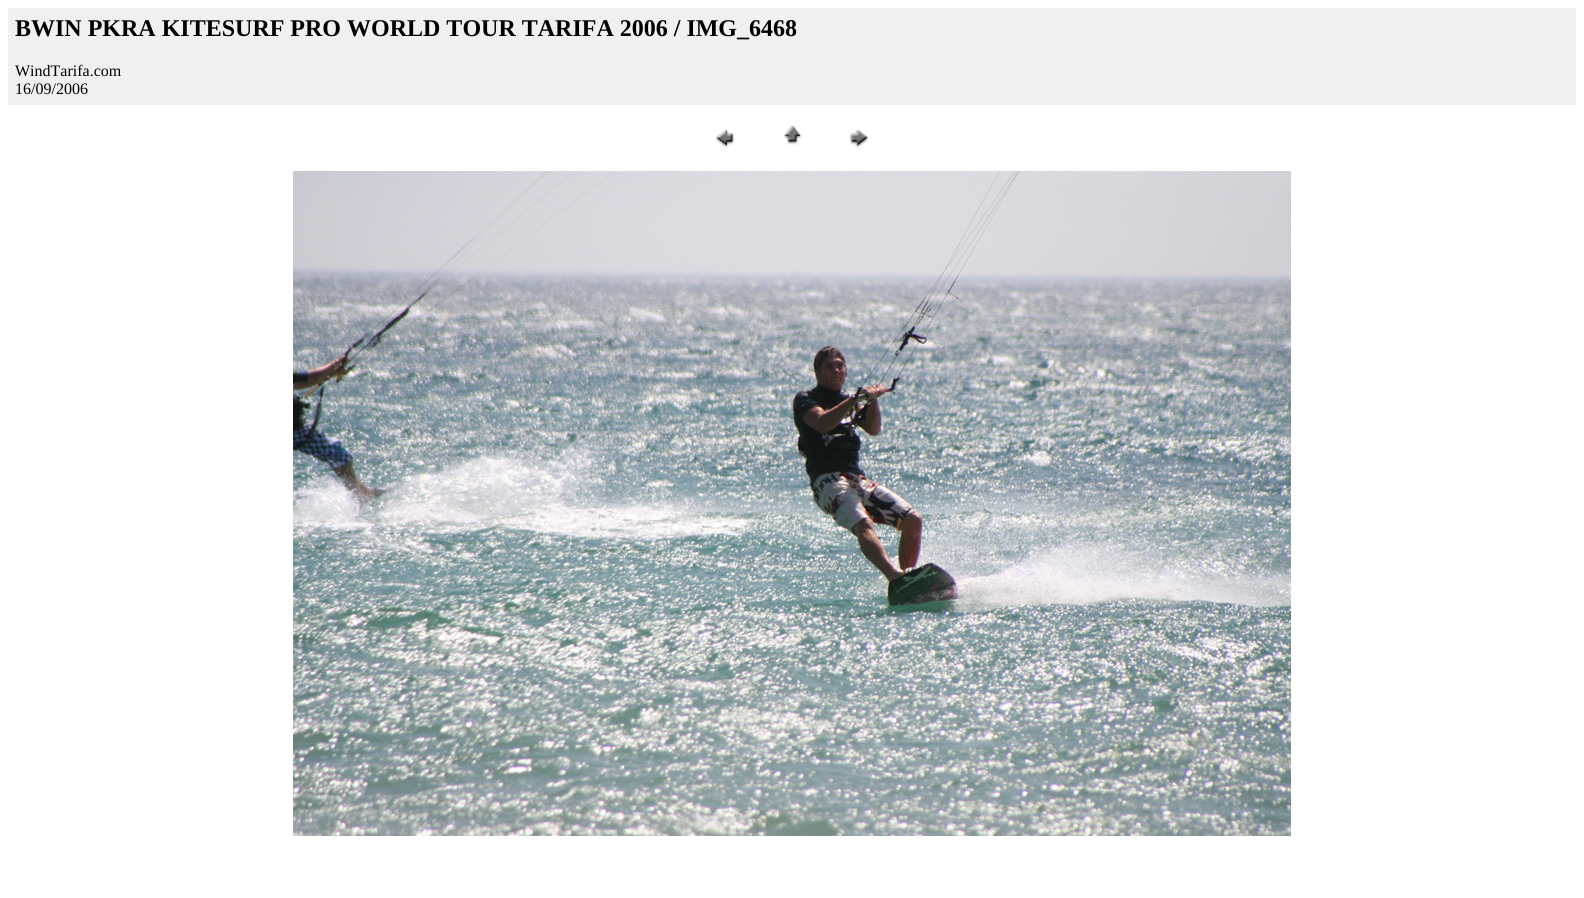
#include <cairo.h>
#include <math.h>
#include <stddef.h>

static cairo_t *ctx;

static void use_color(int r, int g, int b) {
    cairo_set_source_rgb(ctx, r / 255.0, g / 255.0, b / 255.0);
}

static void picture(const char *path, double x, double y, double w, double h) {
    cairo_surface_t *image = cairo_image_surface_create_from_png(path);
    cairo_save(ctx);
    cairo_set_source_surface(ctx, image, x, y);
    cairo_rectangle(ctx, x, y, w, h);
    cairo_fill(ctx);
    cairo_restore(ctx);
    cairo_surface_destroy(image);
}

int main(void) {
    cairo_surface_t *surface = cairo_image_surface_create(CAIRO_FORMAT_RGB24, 1584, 898);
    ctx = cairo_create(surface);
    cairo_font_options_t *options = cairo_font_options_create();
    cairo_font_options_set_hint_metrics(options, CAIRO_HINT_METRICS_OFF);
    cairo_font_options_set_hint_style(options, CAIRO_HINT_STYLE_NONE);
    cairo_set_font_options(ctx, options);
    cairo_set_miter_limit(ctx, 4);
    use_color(255, 255, 255);
    cairo_paint(ctx);
    use_color(240, 240, 240);
    cairo_rectangle(ctx, 8, 8, 1568, 97);
    cairo_fill(ctx);
    cairo_select_font_face(ctx, "Liberation Serif", CAIRO_FONT_SLANT_NORMAL, CAIRO_FONT_WEIGHT_BOLD);
    cairo_set_font_size(ctx, 24);
    use_color(0, 0, 0);
    cairo_move_to(ctx, 15, 36);
    cairo_show_text(ctx, "BWIN PKRA KITESURF PRO WORLD TOUR TARIFA 2006 / IMG_6468");
    cairo_select_font_face(ctx, "Liberation Serif", CAIRO_FONT_SLANT_NORMAL, CAIRO_FONT_WEIGHT_NORMAL);
    cairo_set_font_size(ctx, 16);
    cairo_move_to(ctx, 15, 76);
    cairo_show_text(ctx, "WindTarifa.com");
    cairo_move_to(ctx, 15, 94);
    cairo_show_text(ctx, "16/09/2006");
    picture("img1.png", 715, 129, 20, 19);
    picture("img2.png", 783, 125, 19, 20);
    picture("img3.png", 849, 129, 20, 19);
    picture("img4.png", 293, 171, 998, 665);
    cairo_surface_write_to_png(surface, "result.png");
    cairo_font_options_destroy(options);
    cairo_destroy(ctx);
    cairo_surface_destroy(surface);
    return 0;
}
